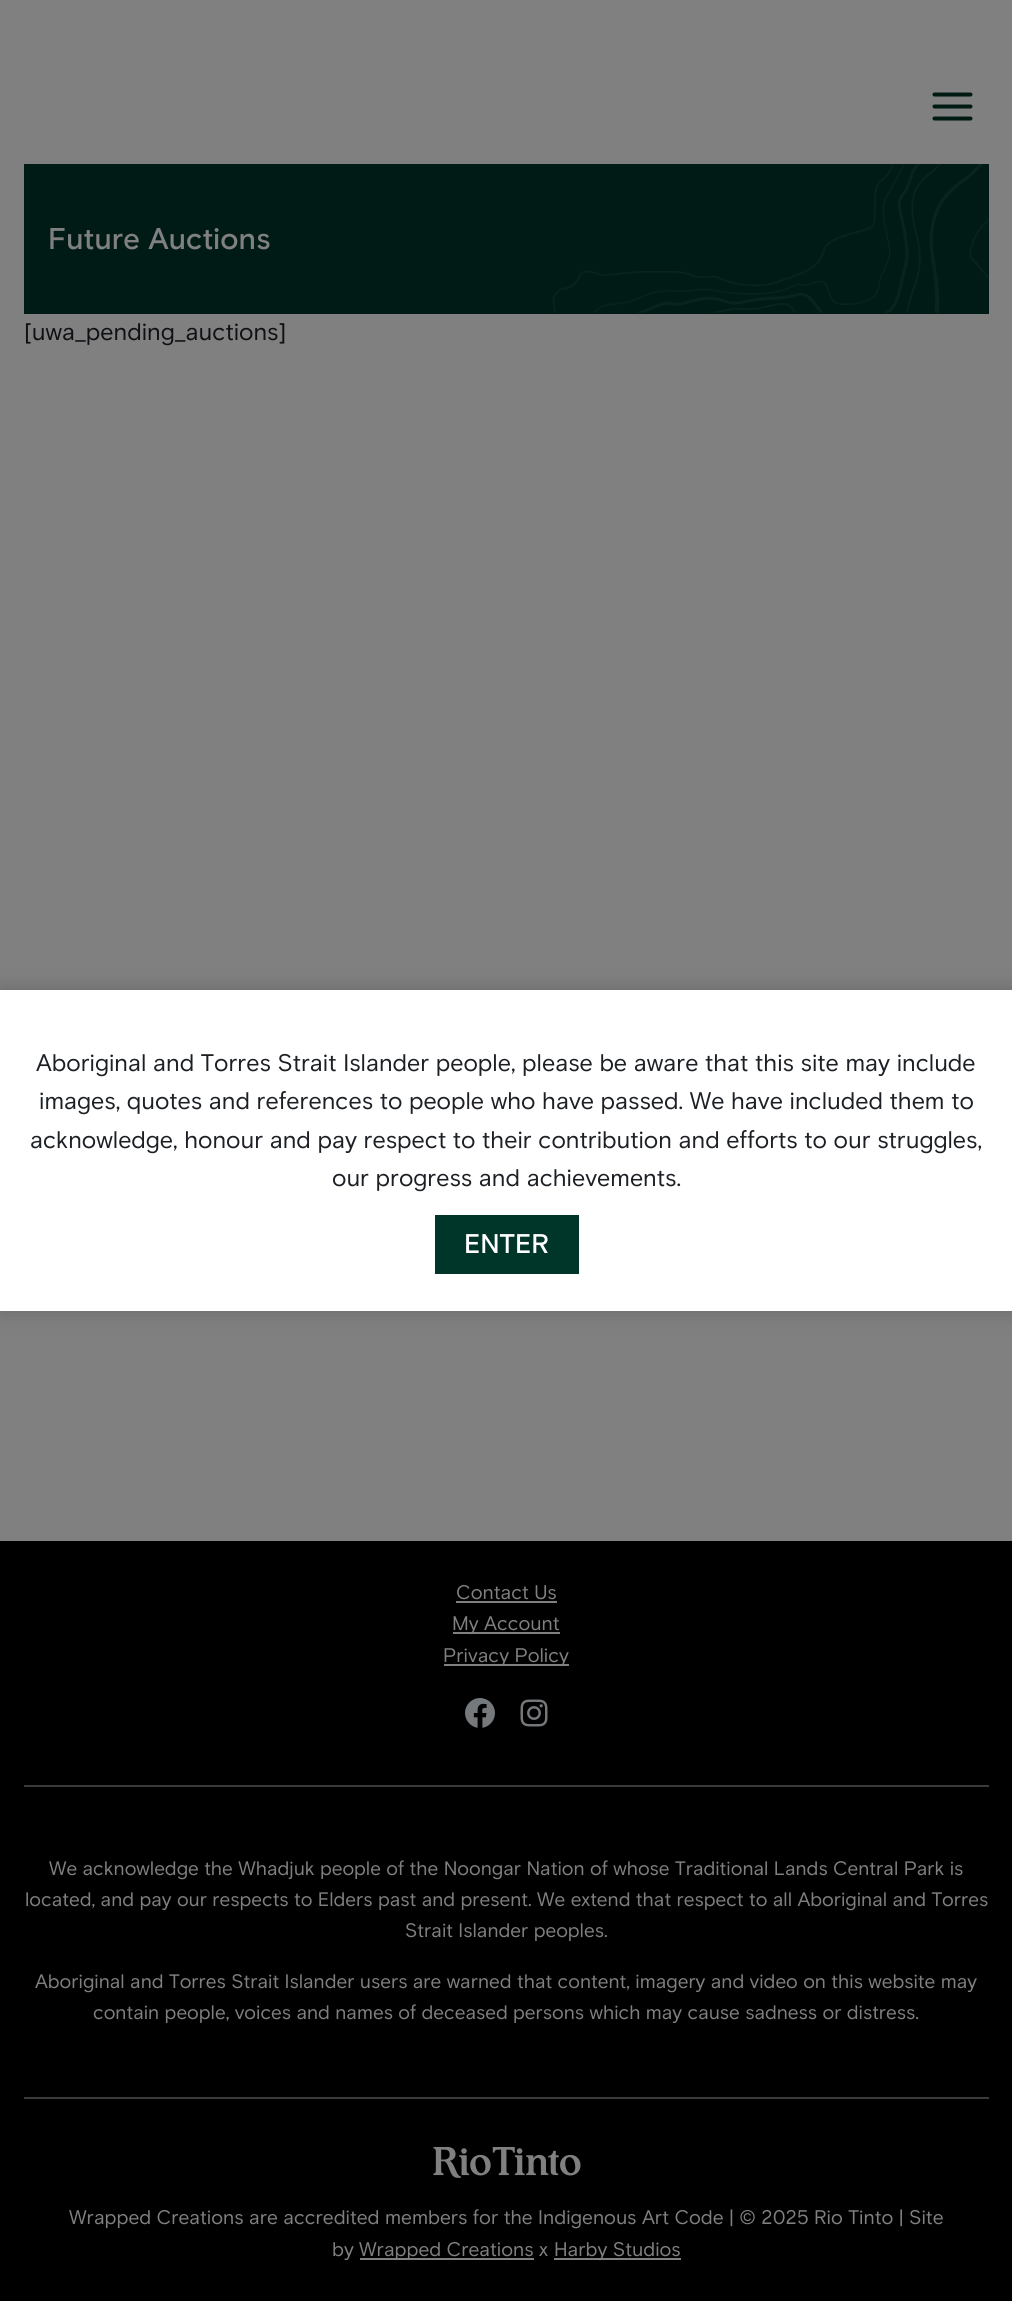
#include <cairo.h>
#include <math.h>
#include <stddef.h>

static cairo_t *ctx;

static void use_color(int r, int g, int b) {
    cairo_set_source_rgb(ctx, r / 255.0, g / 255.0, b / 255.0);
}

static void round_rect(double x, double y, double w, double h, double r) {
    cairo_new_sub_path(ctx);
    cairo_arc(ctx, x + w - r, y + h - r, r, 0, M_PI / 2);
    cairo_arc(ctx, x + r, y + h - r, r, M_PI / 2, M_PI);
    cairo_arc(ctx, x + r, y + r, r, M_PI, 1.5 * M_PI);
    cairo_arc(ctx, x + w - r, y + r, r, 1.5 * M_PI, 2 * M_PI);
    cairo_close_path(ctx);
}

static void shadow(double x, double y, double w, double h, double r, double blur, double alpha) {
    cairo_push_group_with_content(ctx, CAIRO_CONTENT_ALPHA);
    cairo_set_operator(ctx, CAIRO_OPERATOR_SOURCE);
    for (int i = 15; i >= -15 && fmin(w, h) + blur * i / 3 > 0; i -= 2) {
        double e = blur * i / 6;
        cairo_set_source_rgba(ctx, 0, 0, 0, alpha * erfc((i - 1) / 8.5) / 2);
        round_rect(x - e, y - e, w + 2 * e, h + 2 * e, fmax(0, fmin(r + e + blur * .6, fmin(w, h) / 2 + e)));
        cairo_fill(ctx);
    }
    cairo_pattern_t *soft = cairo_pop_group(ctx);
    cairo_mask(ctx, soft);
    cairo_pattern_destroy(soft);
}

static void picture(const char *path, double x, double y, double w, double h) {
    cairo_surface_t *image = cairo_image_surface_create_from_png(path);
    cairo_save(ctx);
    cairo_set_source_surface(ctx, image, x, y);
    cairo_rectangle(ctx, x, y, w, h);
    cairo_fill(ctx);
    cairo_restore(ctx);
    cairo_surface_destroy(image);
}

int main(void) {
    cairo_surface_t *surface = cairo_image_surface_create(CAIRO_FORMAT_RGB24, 1012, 2301);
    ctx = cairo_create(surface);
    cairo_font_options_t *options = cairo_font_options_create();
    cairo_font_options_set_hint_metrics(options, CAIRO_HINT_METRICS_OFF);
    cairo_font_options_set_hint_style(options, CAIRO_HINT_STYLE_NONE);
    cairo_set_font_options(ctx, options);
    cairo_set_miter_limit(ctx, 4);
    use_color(128, 128, 128);
    cairo_paint(ctx);
    picture("img1.png", 932, 92, 41, 29);
    use_color(0, 27, 21);
    cairo_rectangle(ctx, 24, 164, 965, 150);
    cairo_fill(ctx);
    picture("img2.png", 552, 164, 437, 149);
    cairo_select_font_face(ctx, "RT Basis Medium", CAIRO_FONT_SLANT_NORMAL, CAIRO_FONT_WEIGHT_NORMAL);
    cairo_set_font_size(ctx, 30);
    use_color(128, 128, 128);
    cairo_move_to(ctx, 48, 249);
    cairo_show_text(ctx, "Future Auctions");
    cairo_select_font_face(ctx, "RT Basis", CAIRO_FONT_SLANT_NORMAL, CAIRO_FONT_WEIGHT_NORMAL);
    cairo_set_font_size(ctx, 24);
    use_color(14, 16, 19);
    cairo_move_to(ctx, 24, 340);
    cairo_show_text(ctx, "[uwa_pending_auctions]");
    use_color(0, 0, 0);
    cairo_rectangle(ctx, 0, 1541, 1012, 760);
    cairo_fill(ctx);
    cairo_set_font_size(ctx, 19.7);
    use_color(128, 128, 128);
    cairo_move_to(ctx, 456, 1599);
    cairo_show_text(ctx, "Contact Us");
    cairo_rectangle(ctx, 456, 1601, 101, 2);
    cairo_fill(ctx);
    cairo_rectangle(ctx, 453, 1632, 107, 2);
    cairo_fill(ctx);
    cairo_move_to(ctx, 452, 1630);
    cairo_show_text(ctx, "My Account");
    cairo_rectangle(ctx, 444, 1664, 125, 2);
    cairo_fill(ctx);
    cairo_move_to(ctx, 443, 1662);
    cairo_show_text(ctx, "Privacy Policy");
    picture("img3.png", 465, 1698, 30, 30);
    picture("img4.png", 520, 1699, 28, 28);
    use_color(57, 57, 57);
    cairo_rectangle(ctx, 24, 1785, 965, 2);
    cairo_fill(ctx);
    cairo_rectangle(ctx, 24, 2097, 965, 2);
    cairo_fill(ctx);
    cairo_set_font_size(ctx, 19.5);
    use_color(128, 128, 128);
    cairo_move_to(ctx, 49, 1875);
    cairo_show_text(ctx, "We acknowledge the Whadjuk people of the Noongar Nation of whose Traditional Lands Central Park is");
    cairo_move_to(ctx, 25, 1906);
    cairo_show_text(ctx, "located, and pay our respects to Elders past and present. We extend that respect to all Aboriginal and Torres");
    cairo_move_to(ctx, 405, 1937);
    cairo_show_text(ctx, "Strait Islander peoples.");
    cairo_move_to(ctx, 35, 1988);
    cairo_show_text(ctx, "Aboriginal and Torres Strait Islander users are warned that content, imagery and video on this website may");
    cairo_move_to(ctx, 93, 2019);
    cairo_show_text(ctx, "contain people, voices and names of deceased persons which may cause sadness or distress.");
    picture("img5.png", 433, 2147, 148, 31);
    cairo_set_font_size(ctx, 19.7);
    cairo_move_to(ctx, 69, 2224);
    cairo_show_text(ctx, "Wrapped Creations are accredited members for the Indigenous Art Code | © 2025 Rio Tinto | Site");
    cairo_move_to(ctx, 332, 2256);
    cairo_show_text(ctx, "by");
    cairo_rectangle(ctx, 360, 2258, 174, 2);
    cairo_fill(ctx);
    cairo_move_to(ctx, 359, 2256);
    cairo_show_text(ctx, "Wrapped Creations x");
    cairo_rectangle(ctx, 554, 2258, 127, 2);
    cairo_fill(ctx);
    cairo_move_to(ctx, 554, 2256);
    cairo_show_text(ctx, "Harby Studios");
    use_color(0, 0, 0);
    shadow(0, 990, 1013, 321, 0, 10.5, 0.2);
    use_color(255, 255, 255);
    cairo_rectangle(ctx, 0, 990, 1012, 321);
    cairo_fill(ctx);
    cairo_set_font_size(ctx, 24);
    use_color(28, 32, 37);
    cairo_move_to(ctx, 36, 1071);
    cairo_show_text(ctx, "Aboriginal and Torres Strait Islander people, please be aware that this site may include");
    cairo_move_to(ctx, 39, 1109);
    cairo_show_text(ctx, "images, quotes and references to people who have passed. We have included them to");
    cairo_move_to(ctx, 30, 1148);
    cairo_show_text(ctx, "acknowledge, honour and pay respect to their contribution and efforts to our struggles,");
    cairo_move_to(ctx, 332, 1186);
    cairo_show_text(ctx, "our progress and achievements.");
    use_color(0, 53, 41);
    cairo_rectangle(ctx, 435, 1215, 144, 59);
    cairo_fill(ctx);
    cairo_select_font_face(ctx, "RT Basis Medium", CAIRO_FONT_SLANT_NORMAL, CAIRO_FONT_WEIGHT_NORMAL);
    cairo_set_font_size(ctx, 27);
    use_color(255, 255, 255);
    cairo_move_to(ctx, 464, 1253);
    cairo_show_text(ctx, "ENTER");
    cairo_surface_write_to_png(surface, "result.png");
    cairo_font_options_destroy(options);
    cairo_destroy(ctx);
    cairo_surface_destroy(surface);
    return 0;
}
